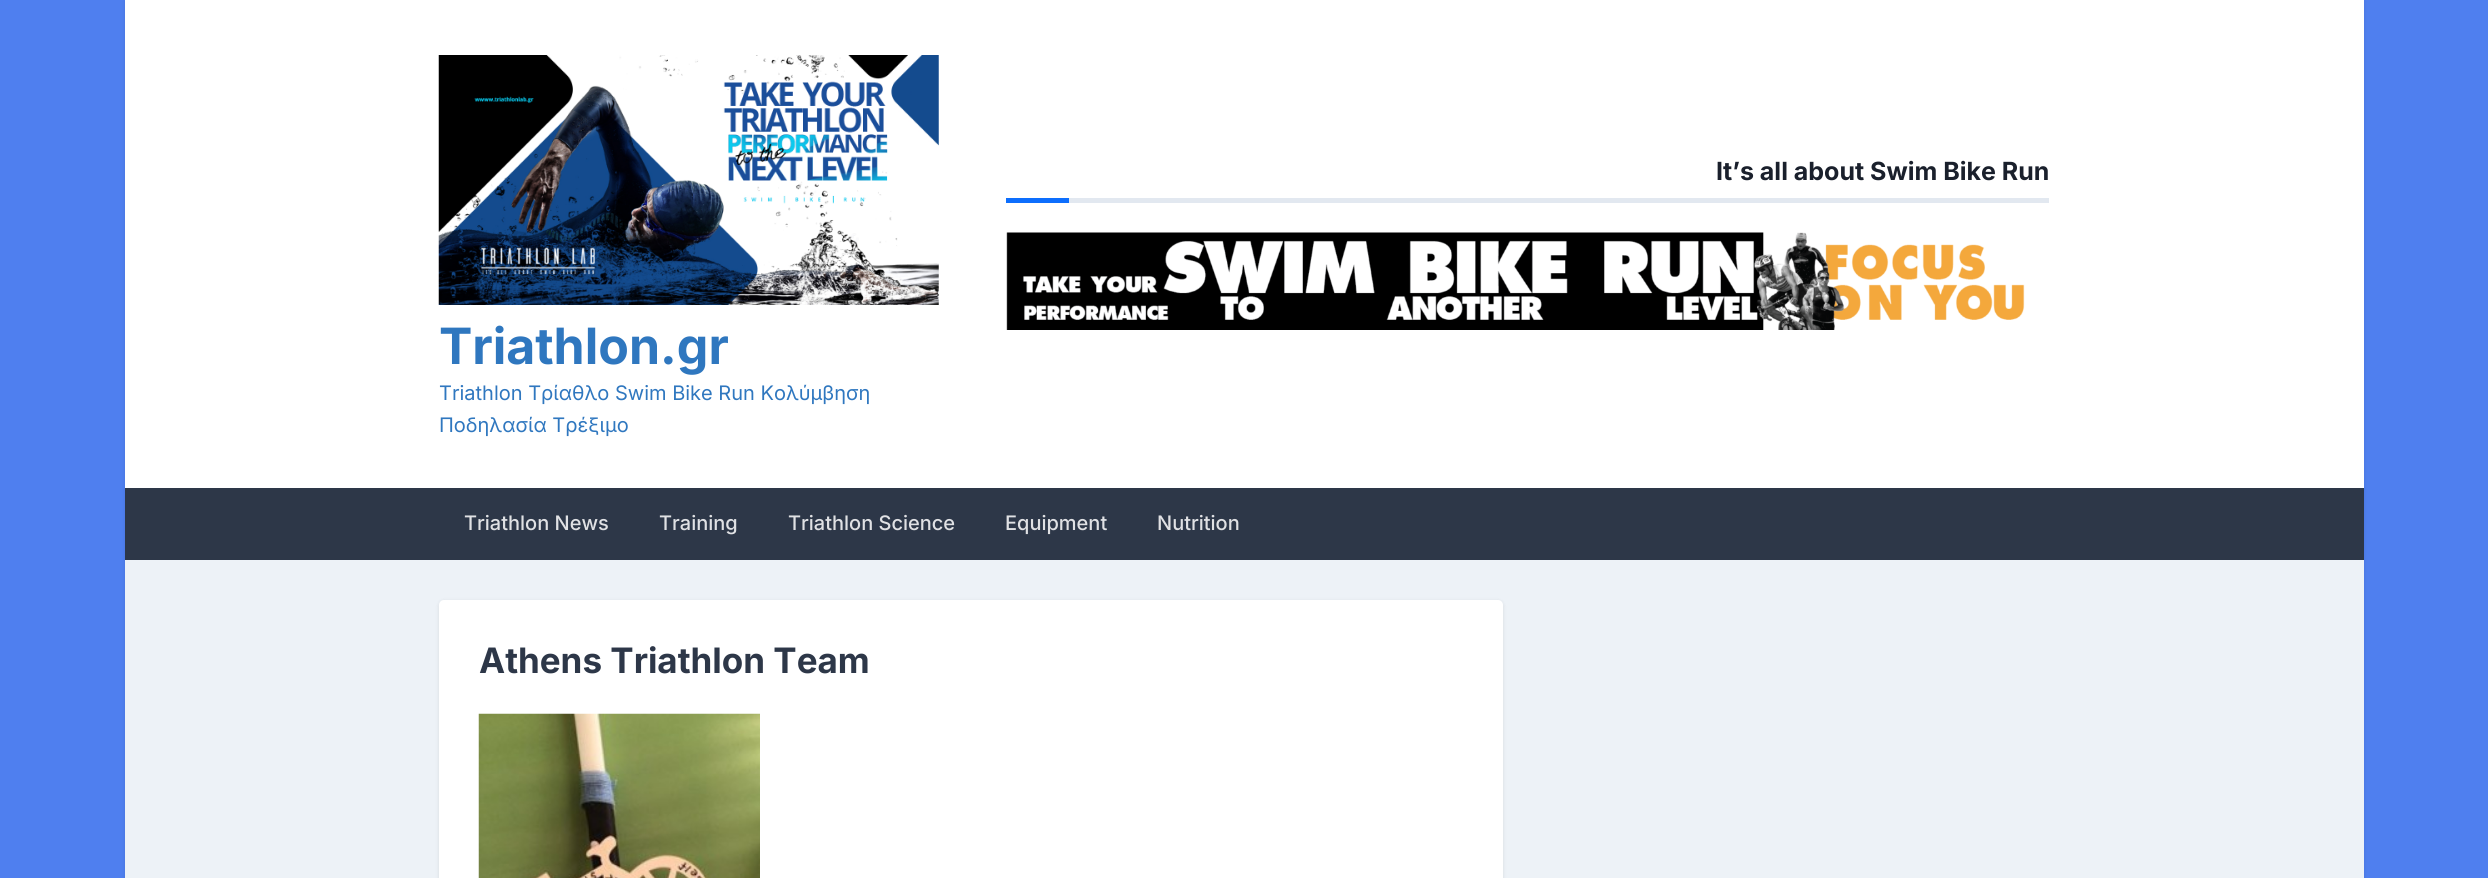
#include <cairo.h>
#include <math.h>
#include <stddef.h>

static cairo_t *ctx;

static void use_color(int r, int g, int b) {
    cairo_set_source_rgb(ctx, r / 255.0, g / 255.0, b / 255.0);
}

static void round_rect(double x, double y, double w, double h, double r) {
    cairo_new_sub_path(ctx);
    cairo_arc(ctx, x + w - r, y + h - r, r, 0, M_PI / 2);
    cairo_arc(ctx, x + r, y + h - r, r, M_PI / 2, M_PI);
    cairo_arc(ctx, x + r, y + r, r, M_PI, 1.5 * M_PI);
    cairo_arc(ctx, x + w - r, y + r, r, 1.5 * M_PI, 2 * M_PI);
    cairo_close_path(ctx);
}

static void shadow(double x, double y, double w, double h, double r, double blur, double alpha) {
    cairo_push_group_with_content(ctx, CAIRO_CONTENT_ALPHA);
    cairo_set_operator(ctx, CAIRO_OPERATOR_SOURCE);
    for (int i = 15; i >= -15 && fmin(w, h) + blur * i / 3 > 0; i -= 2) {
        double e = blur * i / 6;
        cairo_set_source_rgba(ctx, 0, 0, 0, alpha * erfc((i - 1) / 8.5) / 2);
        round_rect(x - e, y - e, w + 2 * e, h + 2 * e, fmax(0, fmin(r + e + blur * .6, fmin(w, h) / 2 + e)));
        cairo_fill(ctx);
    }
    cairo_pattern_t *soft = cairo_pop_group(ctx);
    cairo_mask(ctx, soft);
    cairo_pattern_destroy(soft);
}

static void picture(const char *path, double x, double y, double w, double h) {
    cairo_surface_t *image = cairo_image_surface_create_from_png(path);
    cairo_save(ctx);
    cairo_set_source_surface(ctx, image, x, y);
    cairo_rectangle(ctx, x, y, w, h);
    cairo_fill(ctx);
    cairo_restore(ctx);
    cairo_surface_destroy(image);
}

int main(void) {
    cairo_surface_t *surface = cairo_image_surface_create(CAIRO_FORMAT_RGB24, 2488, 878);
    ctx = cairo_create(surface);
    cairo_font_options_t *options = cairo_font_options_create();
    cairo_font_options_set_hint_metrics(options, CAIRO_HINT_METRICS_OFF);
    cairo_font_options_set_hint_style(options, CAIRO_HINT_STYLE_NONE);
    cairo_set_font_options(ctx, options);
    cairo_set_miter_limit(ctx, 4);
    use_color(79, 127, 239);
    cairo_paint(ctx);
    use_color(0, 0, 0);
    shadow(125, 1, 2239, 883, 0, 2, 0.1);
    use_color(237, 242, 247);
    cairo_rectangle(ctx, 125, 560, 2239, 318);
    cairo_fill(ctx);
    use_color(255, 255, 255);
    cairo_rectangle(ctx, 125, 0, 2239, 488);
    cairo_fill(ctx);
    use_color(226, 232, 240);
    cairo_rectangle(ctx, 1069, 198, 980, 5);
    cairo_fill(ctx);
    cairo_select_font_face(ctx, "Inter", CAIRO_FONT_SLANT_NORMAL, CAIRO_FONT_WEIGHT_BOLD);
    cairo_set_font_size(ctx, 25);
    use_color(26, 32, 44);
    cairo_move_to(ctx, 1716, 180);
    cairo_show_text(ctx, "It’s all about Swim Bike Run");
    use_color(13, 110, 253);
    cairo_rectangle(ctx, 1006, 198, 63, 5);
    cairo_fill(ctx);
    picture("img1.png", 1006, 232, 1019, 98);
    picture("img2.png", 438, 55, 501, 250);
    cairo_set_font_size(ctx, 50);
    use_color(47, 119, 191);
    cairo_move_to(ctx, 439, 364);
    cairo_show_text(ctx, "Triathlon.gr");
    cairo_select_font_face(ctx, "Inter", CAIRO_FONT_SLANT_NORMAL, CAIRO_FONT_WEIGHT_NORMAL);
    cairo_set_font_size(ctx, 20);
    cairo_move_to(ctx, 439, 400);
    cairo_show_text(ctx, "Triathlon Τρίαθλο Swim Bike Run Κολύμβηση");
    cairo_move_to(ctx, 439, 432);
    cairo_show_text(ctx, "Ποδηλασία Τρέξιμο");
    use_color(45, 55, 72);
    cairo_rectangle(ctx, 125, 488, 2239, 72);
    cairo_fill(ctx);
    cairo_select_font_face(ctx, "Inter Medium", CAIRO_FONT_SLANT_NORMAL, CAIRO_FONT_WEIGHT_NORMAL);
    use_color(224, 225, 228);
    cairo_move_to(ctx, 464, 530);
    cairo_show_text(ctx, "Triathlon News");
    cairo_move_to(ctx, 659, 530);
    cairo_show_text(ctx, "Training");
    cairo_move_to(ctx, 788, 530);
    cairo_show_text(ctx, "Triathlon Science");
    cairo_move_to(ctx, 1005, 530);
    cairo_show_text(ctx, "Equipment");
    cairo_move_to(ctx, 1157, 530);
    cairo_show_text(ctx, "Nutrition");
    use_color(0, 0, 0);
    shadow(439, 601, 1064, 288, 5, 2, 0.1);
    use_color(255, 255, 255);
    round_rect(439, 600, 1064, 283, 5);
    cairo_fill(ctx);
    cairo_select_font_face(ctx, "Inter", CAIRO_FONT_SLANT_NORMAL, CAIRO_FONT_WEIGHT_BOLD);
    cairo_set_font_size(ctx, 35);
    use_color(45, 55, 72);
    cairo_move_to(ctx, 479, 673);
    cairo_show_text(ctx, "Athens Triathlon Team");
    picture("img3.png", 478, 713, 282, 165);
    cairo_surface_write_to_png(surface, "result.png");
    cairo_font_options_destroy(options);
    cairo_destroy(ctx);
    cairo_surface_destroy(surface);
    return 0;
}
